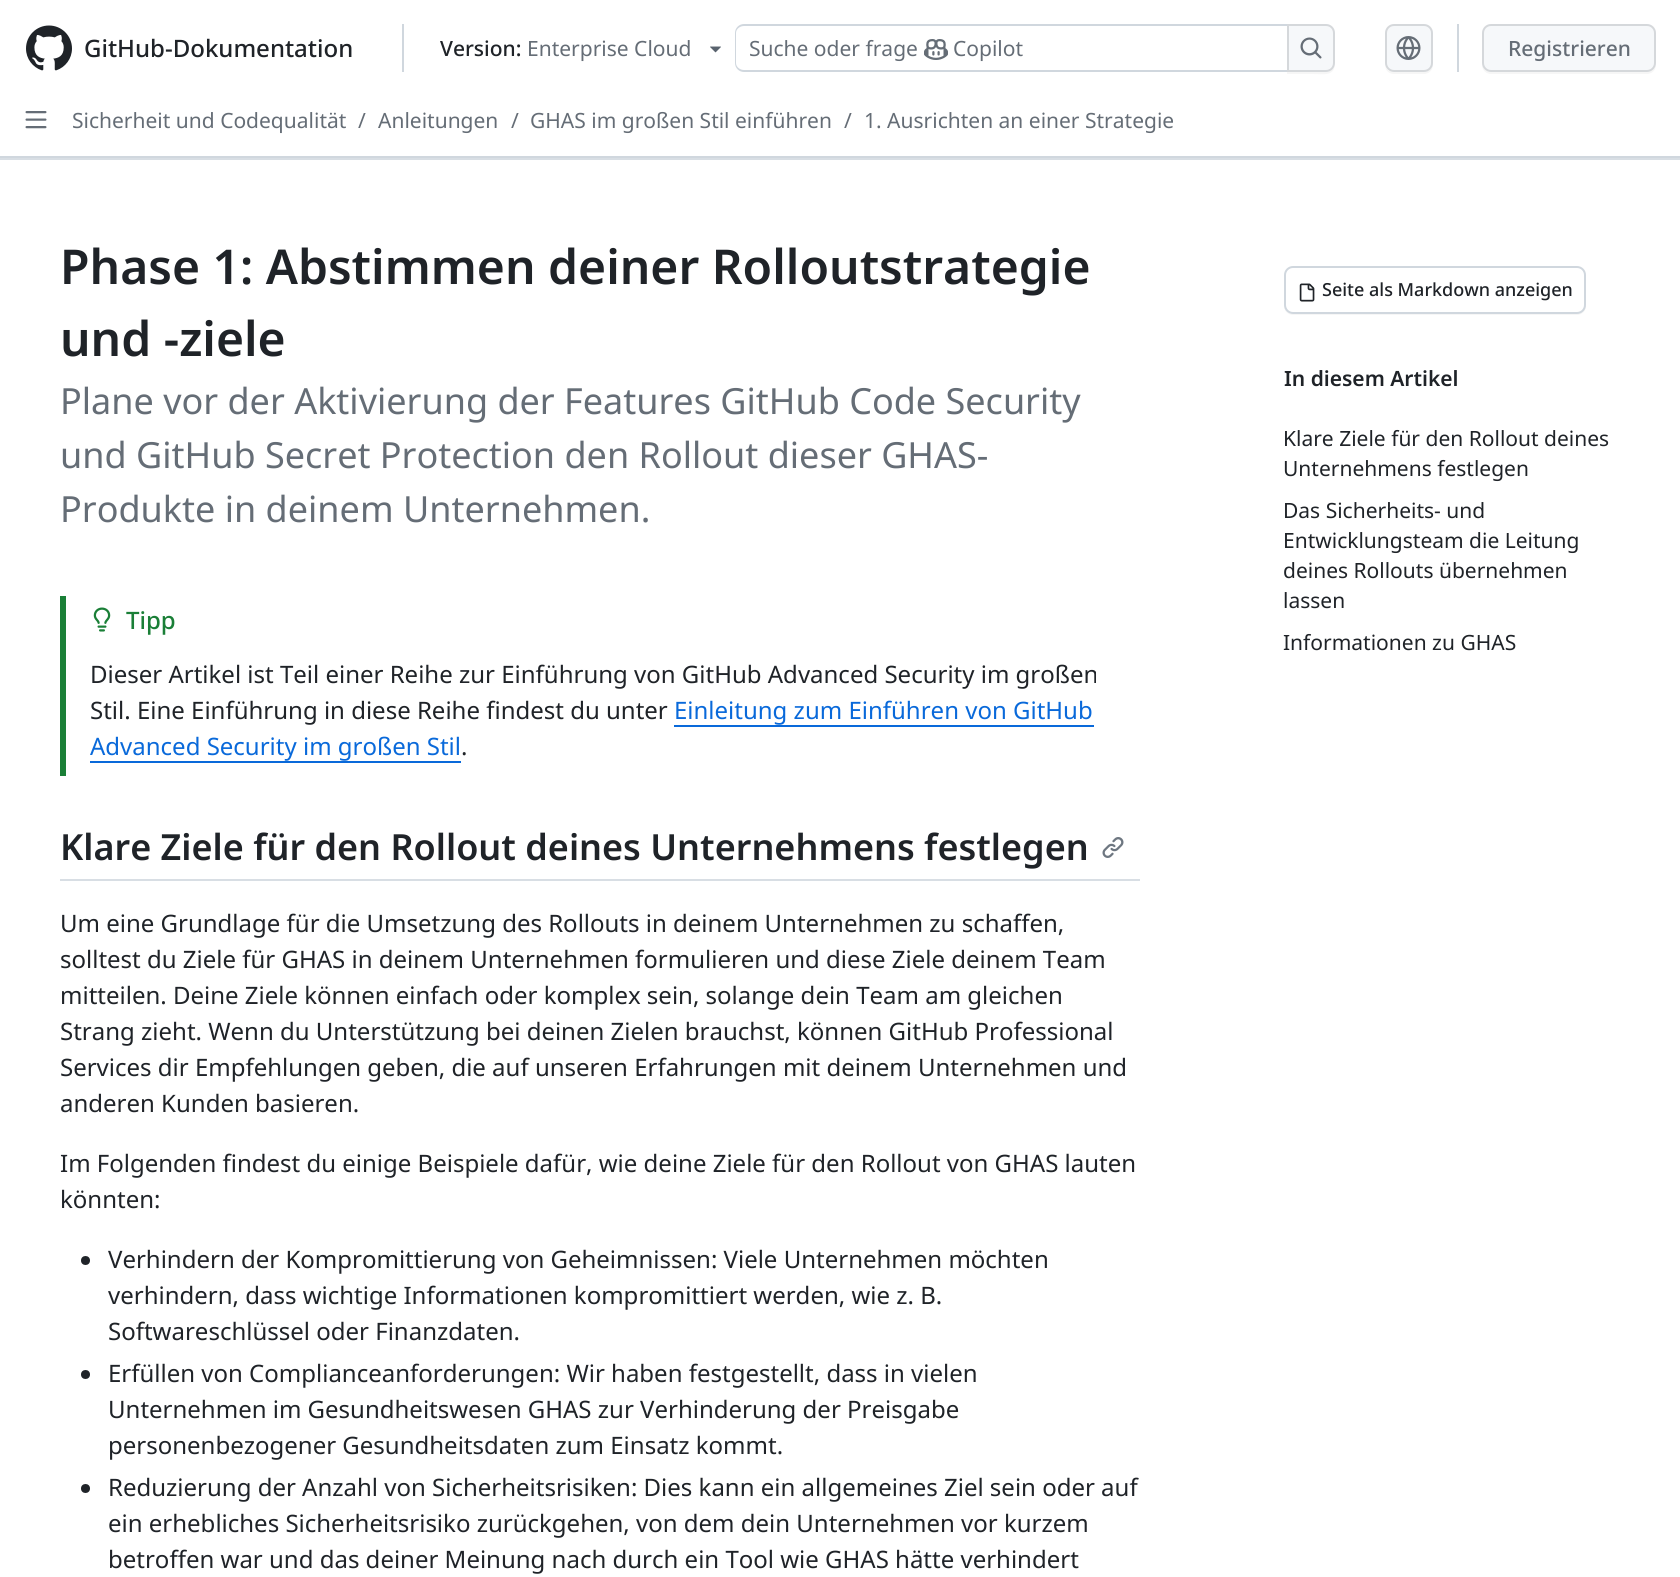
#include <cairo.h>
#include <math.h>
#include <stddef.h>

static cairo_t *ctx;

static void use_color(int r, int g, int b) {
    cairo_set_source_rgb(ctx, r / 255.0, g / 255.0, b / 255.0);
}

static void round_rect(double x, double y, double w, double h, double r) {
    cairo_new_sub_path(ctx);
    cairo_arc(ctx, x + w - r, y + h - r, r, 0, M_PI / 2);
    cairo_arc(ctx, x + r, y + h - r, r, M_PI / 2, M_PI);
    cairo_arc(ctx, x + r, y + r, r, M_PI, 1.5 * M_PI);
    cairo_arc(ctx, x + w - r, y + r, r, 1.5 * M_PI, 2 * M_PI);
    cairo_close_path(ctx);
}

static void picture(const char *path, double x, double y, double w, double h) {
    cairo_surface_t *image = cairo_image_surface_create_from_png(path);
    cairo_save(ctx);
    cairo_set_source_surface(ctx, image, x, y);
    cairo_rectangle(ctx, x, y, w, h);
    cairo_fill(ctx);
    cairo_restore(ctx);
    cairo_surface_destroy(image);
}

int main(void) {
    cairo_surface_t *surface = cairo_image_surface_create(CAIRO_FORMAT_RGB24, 1680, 1577);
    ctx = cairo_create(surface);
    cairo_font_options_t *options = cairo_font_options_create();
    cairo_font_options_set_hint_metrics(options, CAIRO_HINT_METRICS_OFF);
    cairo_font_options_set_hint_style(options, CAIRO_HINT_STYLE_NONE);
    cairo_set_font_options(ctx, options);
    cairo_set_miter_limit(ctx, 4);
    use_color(255, 255, 255);
    cairo_paint(ctx);
    use_color(216, 222, 228);
    cairo_rectangle(ctx, 0, 158, 1680, 2);
    cairo_fill(ctx);
    use_color(208, 215, 222);
    cairo_rectangle(ctx, 0, 156, 1680, 2);
    cairo_fill(ctx);
    picture("img1.png", 26, 25, 46, 46);
    cairo_select_font_face(ctx, "Noto Sans Medium", CAIRO_FONT_SLANT_NORMAL, CAIRO_FONT_WEIGHT_NORMAL);
    cairo_set_font_size(ctx, 24);
    use_color(31, 35, 40);
    cairo_move_to(ctx, 84, 57);
    cairo_show_text(ctx, "GitHub-Dokumentation");
    use_color(208, 215, 222);
    cairo_rectangle(ctx, 402, 24, 2, 48);
    cairo_fill(ctx);
    cairo_set_font_size(ctx, 21);
    use_color(31, 35, 40);
    cairo_move_to(ctx, 440, 56);
    cairo_show_text(ctx, "Version:");
    cairo_select_font_face(ctx, "Noto Sans", CAIRO_FONT_SLANT_NORMAL, CAIRO_FONT_WEIGHT_NORMAL);
    use_color(101, 109, 118);
    cairo_move_to(ctx, 527, 56);
    cairo_show_text(ctx, "Enterprise Cloud");
    picture("img2.png", 710, 46, 11, 7);
    use_color(208, 215, 222);
    cairo_set_fill_rule(ctx, CAIRO_FILL_RULE_EVEN_ODD);
    cairo_new_path(ctx);
    cairo_move_to(ctx, 744, 24);
    cairo_line_to(ctx, 1287, 24);
    cairo_line_to(ctx, 1287, 72);
    cairo_line_to(ctx, 744, 72);
    cairo_curve_to(ctx, 739, 72, 735, 68, 735, 63);
    cairo_line_to(ctx, 735, 33);
    cairo_curve_to(ctx, 735, 28, 739, 24, 744, 24);
    cairo_close_path(ctx);
    cairo_move_to(ctx, 744, 26);
    cairo_line_to(ctx, 1287, 26);
    cairo_line_to(ctx, 1287, 70);
    cairo_line_to(ctx, 744, 70);
    cairo_curve_to(ctx, 740, 70, 736, 67, 736, 63);
    cairo_line_to(ctx, 736, 33);
    cairo_curve_to(ctx, 736, 29, 740, 26, 744, 26);
    cairo_close_path(ctx);
    cairo_fill(ctx);
    use_color(101, 109, 118);
    cairo_move_to(ctx, 749, 56);
    cairo_show_text(ctx, "Suche oder frage");
    picture("img3.png", 924, 39, 24, 21);
    cairo_move_to(ctx, 953, 56);
    cairo_show_text(ctx, "Copilot");
    use_color(246, 246, 246);
    cairo_set_fill_rule(ctx, CAIRO_FILL_RULE_WINDING);
    cairo_new_path(ctx);
    cairo_move_to(ctx, 1287, 72);
    cairo_line_to(ctx, 1287, 74);
    cairo_line_to(ctx, 1313, 74);
    cairo_curve_to(ctx, 1323, 74, 1335, 77, 1335, 63);
    cairo_curve_to(ctx, 1335, 68, 1331, 72, 1326, 72);
    cairo_close_path(ctx);
    cairo_fill(ctx);
    use_color(246, 248, 250);
    cairo_new_path(ctx);
    cairo_move_to(ctx, 1287, 24);
    cairo_line_to(ctx, 1326, 24);
    cairo_curve_to(ctx, 1331, 24, 1335, 28, 1335, 33);
    cairo_line_to(ctx, 1335, 63);
    cairo_curve_to(ctx, 1335, 68, 1331, 72, 1326, 72);
    cairo_line_to(ctx, 1287, 72);
    cairo_close_path(ctx);
    cairo_fill(ctx);
    cairo_new_path(ctx);
    cairo_move_to(ctx, 1288, 25);
    cairo_line_to(ctx, 1326, 25);
    cairo_curve_to(ctx, 1330.5, 25, 1334, 28.5, 1334, 33);
    cairo_line_to(ctx, 1334, 63);
    cairo_curve_to(ctx, 1334, 67.5, 1330.5, 71, 1326, 71);
    cairo_line_to(ctx, 1288, 71);
    cairo_close_path(ctx);
    cairo_set_source_rgba(ctx, 0.122, 0.137, 0.157, 0.15);
    cairo_stroke(ctx);
    picture("img4.png", 1300, 37, 22, 22);
    use_color(246, 246, 246);
    cairo_new_path(ctx);
    cairo_move_to(ctx, 1385, 66);
    cairo_curve_to(ctx, 1386, 71, 1389, 74, 1394, 74);
    cairo_line_to(ctx, 1424, 74);
    cairo_curve_to(ctx, 1429, 74, 1433, 70, 1433, 65);
    cairo_line_to(ctx, 1433, 35);
    cairo_line_to(ctx, 1432, 32);
    cairo_line_to(ctx, 1432, 65);
    cairo_line_to(ctx, 1431, 68);
    cairo_curve_to(ctx, 1428, 72, 1423, 72, 1418, 72);
    cairo_line_to(ctx, 1398, 72);
    cairo_curve_to(ctx, 1393, 72, 1387, 72, 1385, 66);
    cairo_close_path(ctx);
    cairo_fill(ctx);
    use_color(246, 248, 250);
    round_rect(1385, 24, 48, 48, 9);
    cairo_fill(ctx);
    round_rect(1386, 25, 46, 46, 8);
    cairo_set_source_rgba(ctx, 0.122, 0.137, 0.157, 0.15);
    cairo_stroke(ctx);
    picture("img5.png", 1396, 36, 25, 24);
    use_color(208, 215, 222);
    cairo_rectangle(ctx, 1457, 24, 2, 48);
    cairo_fill(ctx);
    use_color(246, 246, 246);
    cairo_new_path(ctx);
    cairo_move_to(ctx, 1482, 63);
    cairo_line_to(ctx, 1482, 65);
    cairo_curve_to(ctx, 1482, 70, 1486, 74, 1491, 74);
    cairo_line_to(ctx, 1647, 74);
    cairo_curve_to(ctx, 1652, 74, 1656, 70, 1656, 65);
    cairo_line_to(ctx, 1656, 63);
    cairo_curve_to(ctx, 1656, 68, 1652, 72, 1647, 72);
    cairo_line_to(ctx, 1491, 72);
    cairo_curve_to(ctx, 1486, 72, 1482, 68, 1482, 63);
    cairo_close_path(ctx);
    cairo_fill(ctx);
    use_color(246, 248, 250);
    round_rect(1482, 24, 174, 48, 9);
    cairo_fill(ctx);
    round_rect(1483, 25, 172, 46, 8);
    cairo_set_source_rgba(ctx, 0.122, 0.137, 0.157, 0.15);
    cairo_stroke(ctx);
    cairo_select_font_face(ctx, "Noto Sans Medium", CAIRO_FONT_SLANT_NORMAL, CAIRO_FONT_WEIGHT_NORMAL);
    use_color(101, 109, 118);
    cairo_move_to(ctx, 1508, 56);
    cairo_show_text(ctx, "Registrieren");
    picture("img6.png", 25, 111, 22, 18);
    cairo_select_font_face(ctx, "Noto Sans", CAIRO_FONT_SLANT_NORMAL, CAIRO_FONT_WEIGHT_NORMAL);
    cairo_move_to(ctx, 72, 128);
    cairo_show_text(ctx, "Sicherheit und Codequalität");
    cairo_move_to(ctx, 358, 128);
    cairo_show_text(ctx, "/");
    cairo_move_to(ctx, 378, 128);
    cairo_show_text(ctx, "Anleitungen");
    cairo_move_to(ctx, 511, 128);
    cairo_show_text(ctx, "/");
    cairo_move_to(ctx, 530, 128);
    cairo_show_text(ctx, "GHAS im großen Stil einführen");
    cairo_move_to(ctx, 844, 128);
    cairo_show_text(ctx, "/");
    cairo_move_to(ctx, 864, 128);
    cairo_show_text(ctx, "1. Ausrichten an einer Strategie");
    cairo_select_font_face(ctx, "Noto Sans SemiBold", CAIRO_FONT_SLANT_NORMAL, CAIRO_FONT_WEIGHT_NORMAL);
    cairo_set_font_size(ctx, 48);
    use_color(31, 35, 40);
    cairo_move_to(ctx, 60, 284);
    cairo_show_text(ctx, "Phase 1: Abstimmen deiner Rolloutstrategie");
    cairo_move_to(ctx, 60, 356);
    cairo_show_text(ctx, "und -ziele");
    use_color(246, 246, 246);
    cairo_new_path(ctx);
    cairo_move_to(ctx, 1284, 304);
    cairo_line_to(ctx, 1284, 306);
    cairo_curve_to(ctx, 1284, 311, 1288, 315, 1293, 315);
    cairo_line_to(ctx, 1577, 315);
    cairo_curve_to(ctx, 1582, 315, 1586, 311, 1586, 306);
    cairo_line_to(ctx, 1586, 276);
    cairo_line_to(ctx, 1585, 272);
    cairo_line_to(ctx, 1586, 304);
    cairo_curve_to(ctx, 1586, 309, 1581, 314, 1576, 314);
    cairo_line_to(ctx, 1293, 314);
    cairo_curve_to(ctx, 1288, 314, 1284, 309, 1284, 304);
    cairo_close_path(ctx);
    cairo_fill(ctx);
    round_rect(1285, 267, 300, 46, 8);
    use_color(208, 215, 222);
    cairo_stroke(ctx);
    picture("img7.png", 1299, 283, 16, 19);
    cairo_select_font_face(ctx, "Noto Sans Medium", CAIRO_FONT_SLANT_NORMAL, CAIRO_FONT_WEIGHT_NORMAL);
    cairo_set_font_size(ctx, 18);
    use_color(31, 35, 40);
    cairo_move_to(ctx, 1322, 296);
    cairo_show_text(ctx, "Seite als Markdown anzeigen");
    cairo_select_font_face(ctx, "Noto Sans SemiBold", CAIRO_FONT_SLANT_NORMAL, CAIRO_FONT_WEIGHT_NORMAL);
    cairo_set_font_size(ctx, 21);
    cairo_move_to(ctx, 1284, 386);
    cairo_show_text(ctx, "In diesem Artikel");
    cairo_select_font_face(ctx, "Noto Sans", CAIRO_FONT_SLANT_NORMAL, CAIRO_FONT_WEIGHT_NORMAL);
    cairo_move_to(ctx, 1283, 446);
    cairo_show_text(ctx, "Klare Ziele für den Rollout deines");
    cairo_move_to(ctx, 1283, 476);
    cairo_show_text(ctx, "Unternehmens festlegen");
    cairo_move_to(ctx, 1283, 518);
    cairo_show_text(ctx, "Das Sicherheits- und");
    cairo_move_to(ctx, 1283, 548);
    cairo_show_text(ctx, "Entwicklungsteam die Leitung");
    cairo_move_to(ctx, 1283, 578);
    cairo_show_text(ctx, "deines Rollouts übernehmen");
    cairo_move_to(ctx, 1283, 608);
    cairo_show_text(ctx, "lassen");
    cairo_move_to(ctx, 1283, 650);
    cairo_show_text(ctx, "Informationen zu GHAS");
    cairo_set_font_size(ctx, 36);
    use_color(101, 109, 118);
    cairo_move_to(ctx, 60, 414);
    cairo_show_text(ctx, "Plane vor der Aktivierung der Features GitHub Code Security");
    cairo_move_to(ctx, 60, 468);
    cairo_show_text(ctx, "und GitHub Secret Protection den Rollout dieser GHAS-");
    cairo_move_to(ctx, 60, 522);
    cairo_show_text(ctx, "Produkte in deinem Unternehmen.");
    use_color(26, 127, 55);
    cairo_rectangle(ctx, 60, 596, 6, 180);
    cairo_fill(ctx);
    picture("img8.png", 93, 607, 18, 25);
    cairo_select_font_face(ctx, "Noto Sans Medium", CAIRO_FONT_SLANT_NORMAL, CAIRO_FONT_WEIGHT_NORMAL);
    cairo_set_font_size(ctx, 24);
    cairo_move_to(ctx, 126, 629);
    cairo_show_text(ctx, "Tipp");
    cairo_select_font_face(ctx, "Noto Sans", CAIRO_FONT_SLANT_NORMAL, CAIRO_FONT_WEIGHT_NORMAL);
    use_color(31, 35, 40);
    cairo_move_to(ctx, 90, 683);
    cairo_show_text(ctx, "Dieser Artikel ist Teil einer Reihe zur Einführung von GitHub Advanced Security im großen");
    cairo_move_to(ctx, 90, 719);
    cairo_show_text(ctx, "Stil. Eine Einführung in diese Reihe findest du unter");
    use_color(9, 105, 218);
    cairo_move_to(ctx, 674, 719);
    cairo_show_text(ctx, "Einleitung zum Einführen von GitHub");
    cairo_rectangle(ctx, 674, 725, 420, 2);
    cairo_fill(ctx);
    cairo_move_to(ctx, 90, 755);
    cairo_show_text(ctx, "Advanced Security im großen Stil");
    cairo_rectangle(ctx, 90, 761, 371, 2);
    cairo_fill(ctx);
    use_color(31, 35, 40);
    cairo_move_to(ctx, 461, 755);
    cairo_show_text(ctx, ".");
    use_color(216, 222, 228);
    cairo_rectangle(ctx, 60, 879, 1080, 2);
    cairo_fill(ctx);
    cairo_select_font_face(ctx, "Noto Sans SemiBold", CAIRO_FONT_SLANT_NORMAL, CAIRO_FONT_WEIGHT_NORMAL);
    cairo_set_font_size(ctx, 36);
    use_color(31, 35, 40);
    cairo_move_to(ctx, 60, 860);
    cairo_show_text(ctx, "Klare Ziele für den Rollout deines Unternehmens festlegen");
    picture("img9.png", 1102, 837, 22, 21);
    cairo_select_font_face(ctx, "Noto Sans", CAIRO_FONT_SLANT_NORMAL, CAIRO_FONT_WEIGHT_NORMAL);
    cairo_set_font_size(ctx, 24);
    cairo_move_to(ctx, 60, 932);
    cairo_show_text(ctx, "Um eine Grundlage für die Umsetzung des Rollouts in deinem Unternehmen zu schaffen,");
    cairo_move_to(ctx, 60, 968);
    cairo_show_text(ctx, "solltest du Ziele für GHAS in deinem Unternehmen formulieren und diese Ziele deinem Team");
    cairo_move_to(ctx, 60, 1004);
    cairo_show_text(ctx, "mitteilen. Deine Ziele können einfach oder komplex sein, solange dein Team am gleichen");
    cairo_move_to(ctx, 60, 1040);
    cairo_show_text(ctx, "Strang zieht. Wenn du Unterstützung bei deinen Zielen brauchst, können GitHub Professional");
    cairo_move_to(ctx, 60, 1076);
    cairo_show_text(ctx, "Services dir Empfehlungen geben, die auf unseren Erfahrungen mit deinem Unternehmen und");
    cairo_move_to(ctx, 60, 1112);
    cairo_show_text(ctx, "anderen Kunden basieren.");
    cairo_move_to(ctx, 60, 1172);
    cairo_show_text(ctx, "Im Folgenden findest du einige Beispiele dafür, wie deine Ziele für den Rollout von GHAS lauten");
    cairo_move_to(ctx, 60, 1208);
    cairo_show_text(ctx, "könnten:");
    cairo_new_path(ctx);
    cairo_arc(ctx, 85.5, 1260.5, 4.5, 0, 2 * M_PI);
    cairo_fill(ctx);
    cairo_move_to(ctx, 108, 1268);
    cairo_show_text(ctx, "Verhindern der Kompromittierung von Geheimnissen: Viele Unternehmen möchten");
    cairo_move_to(ctx, 108, 1304);
    cairo_show_text(ctx, "verhindern, dass wichtige Informationen kompromittiert werden, wie z. B.");
    cairo_move_to(ctx, 108, 1340);
    cairo_show_text(ctx, "Softwareschlüssel oder Finanzdaten.");
    cairo_new_path(ctx);
    cairo_arc(ctx, 85.5, 1374.5, 4.5, 0, 2 * M_PI);
    cairo_fill(ctx);
    cairo_move_to(ctx, 108, 1382);
    cairo_show_text(ctx, "Erfüllen von Complianceanforderungen: Wir haben festgestellt, dass in vielen");
    cairo_move_to(ctx, 108, 1418);
    cairo_show_text(ctx, "Unternehmen im Gesundheitswesen GHAS zur Verhinderung der Preisgabe");
    cairo_move_to(ctx, 108, 1454);
    cairo_show_text(ctx, "personenbezogener Gesundheitsdaten zum Einsatz kommt.");
    cairo_new_path(ctx);
    cairo_arc(ctx, 85.5, 1488.5, 4.5, 0, 2 * M_PI);
    cairo_fill(ctx);
    cairo_move_to(ctx, 108, 1496);
    cairo_show_text(ctx, "Reduzierung der Anzahl von Sicherheitsrisiken: Dies kann ein allgemeines Ziel sein oder auf");
    cairo_move_to(ctx, 108, 1532);
    cairo_show_text(ctx, "ein erhebliches Sicherheitsrisiko zurückgehen, von dem dein Unternehmen vor kurzem");
    cairo_move_to(ctx, 108, 1568);
    cairo_show_text(ctx, "betroffen war und das deiner Meinung nach durch ein Tool wie GHAS hätte verhindert");
    cairo_surface_write_to_png(surface, "result.png");
    cairo_font_options_destroy(options);
    cairo_destroy(ctx);
    cairo_surface_destroy(surface);
    return 0;
}
